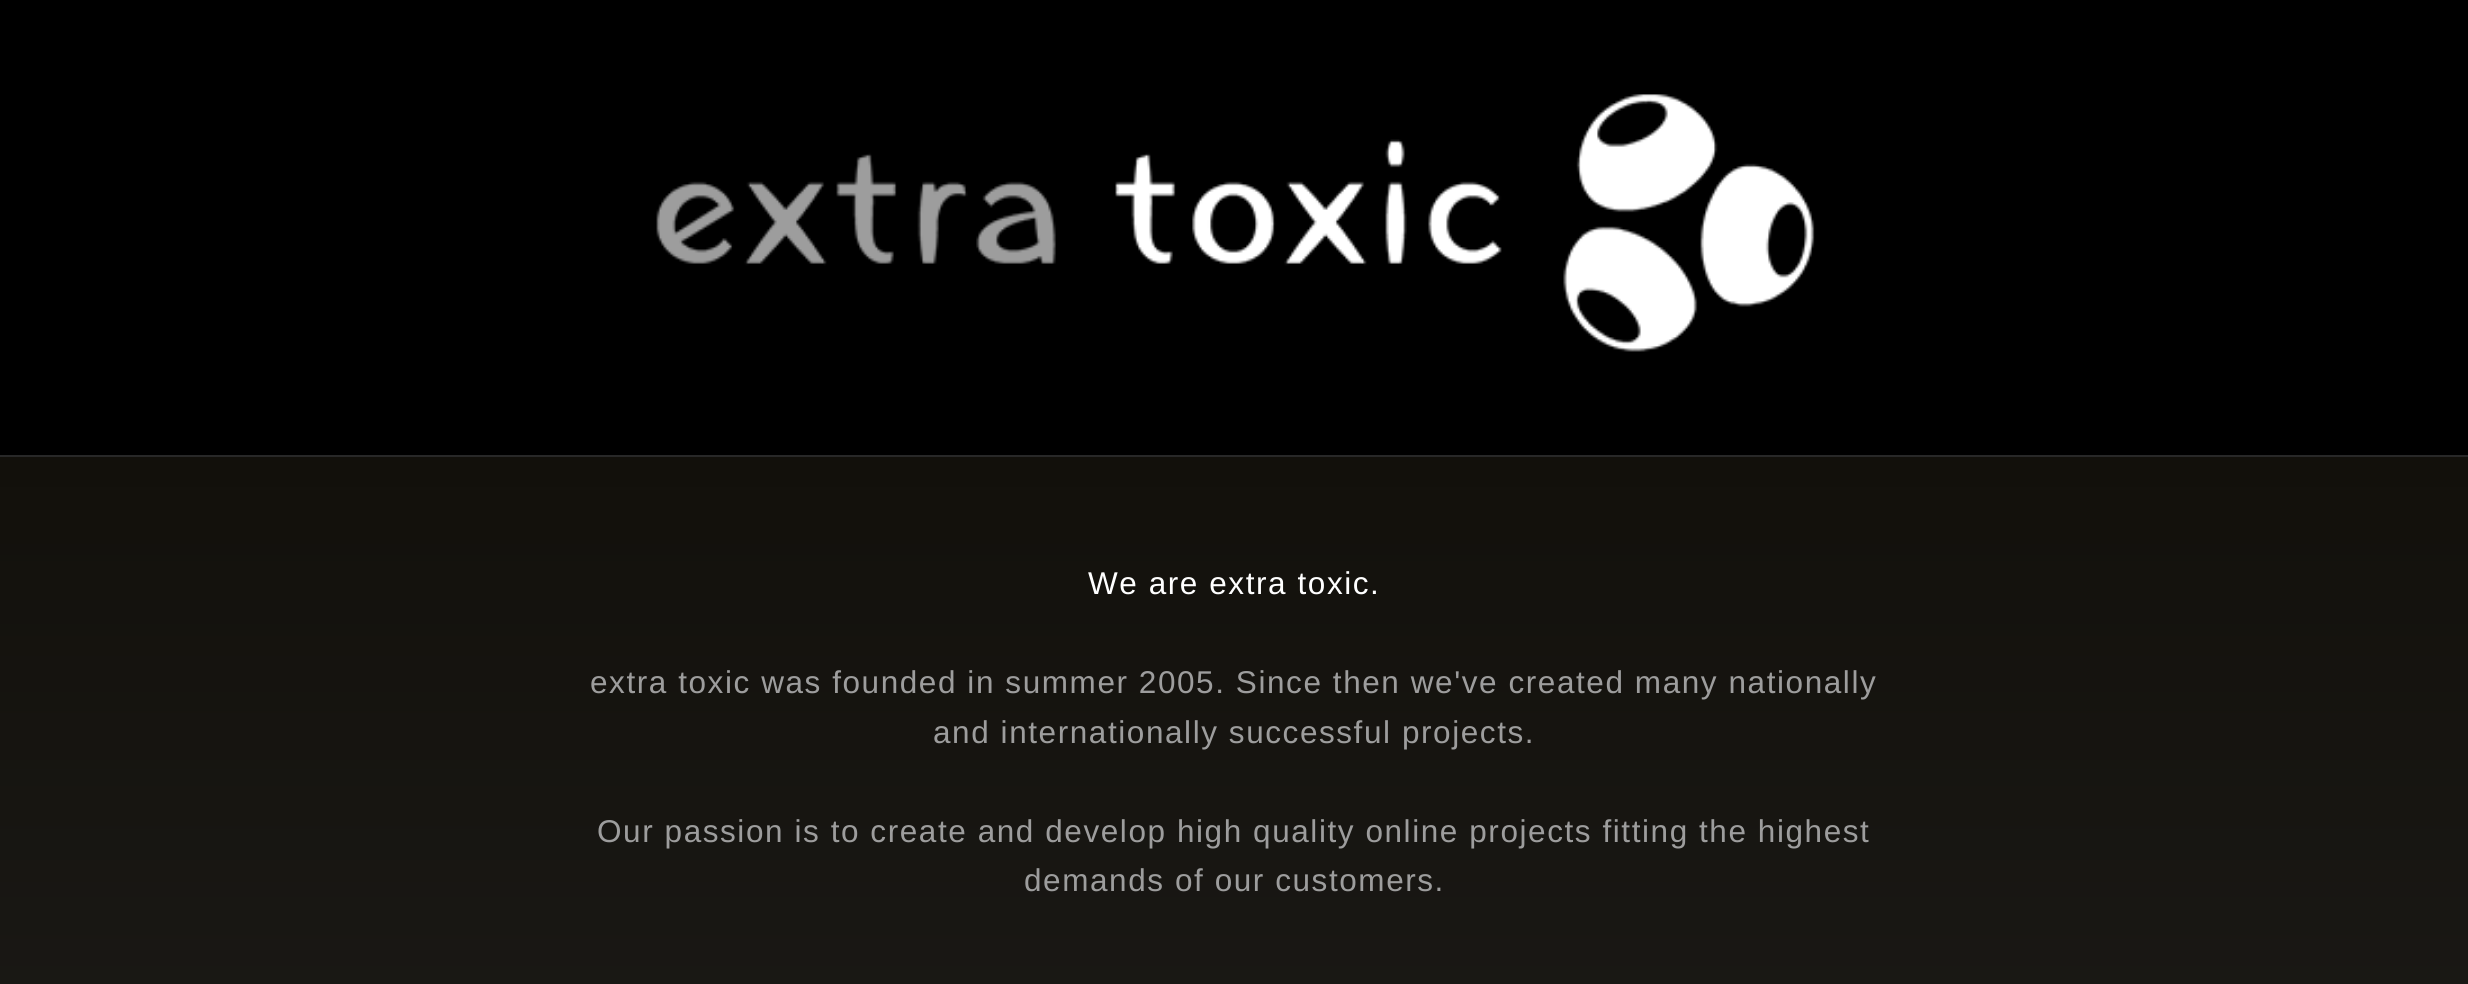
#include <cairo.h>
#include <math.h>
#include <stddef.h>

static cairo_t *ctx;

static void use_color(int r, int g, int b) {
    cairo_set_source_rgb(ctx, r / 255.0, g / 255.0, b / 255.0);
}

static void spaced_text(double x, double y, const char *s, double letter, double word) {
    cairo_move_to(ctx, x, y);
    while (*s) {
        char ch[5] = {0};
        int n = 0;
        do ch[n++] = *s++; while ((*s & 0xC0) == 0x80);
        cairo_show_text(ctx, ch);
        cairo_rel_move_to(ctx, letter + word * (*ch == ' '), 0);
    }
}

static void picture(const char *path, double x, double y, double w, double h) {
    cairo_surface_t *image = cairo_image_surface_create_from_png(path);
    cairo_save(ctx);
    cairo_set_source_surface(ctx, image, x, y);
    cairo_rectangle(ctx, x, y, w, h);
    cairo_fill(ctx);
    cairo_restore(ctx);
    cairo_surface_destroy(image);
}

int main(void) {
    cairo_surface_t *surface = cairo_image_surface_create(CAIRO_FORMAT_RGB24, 2468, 984);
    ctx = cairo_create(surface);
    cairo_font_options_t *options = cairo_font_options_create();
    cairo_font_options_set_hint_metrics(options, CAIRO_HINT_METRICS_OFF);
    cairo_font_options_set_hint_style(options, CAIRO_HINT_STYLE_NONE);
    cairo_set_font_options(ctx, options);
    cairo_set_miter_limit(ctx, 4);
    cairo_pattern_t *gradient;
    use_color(0, 0, 0);
    cairo_paint(ctx);
    use_color(40, 40, 40);
    cairo_rectangle(ctx, 0, 455, 2468, 2);
    cairo_fill(ctx);
    picture("img1.png", 656, 94, 1159, 258);
    gradient = cairo_pattern_create_linear(1234, 457, 1234, 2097);
    cairo_pattern_add_color_stop_rgba(gradient, 0, 0.071, 0.063, 0.043, 1);
    cairo_pattern_add_color_stop_rgba(gradient, 1, 0.157, 0.157, 0.157, 1);
    cairo_set_source(ctx, gradient);
    cairo_pattern_destroy(gradient);
    cairo_rectangle(ctx, 0, 457, 2468, 527);
    cairo_fill(ctx);
    cairo_select_font_face(ctx, "Liberation Sans", CAIRO_FONT_SLANT_NORMAL, CAIRO_FONT_WEIGHT_NORMAL);
    cairo_set_font_size(ctx, 31.5);
    use_color(255, 255, 255);
    spaced_text(1088, 594, "We are extra toxic.", 1.57, 0);
    use_color(157, 157, 157);
    spaced_text(590, 693, "extra toxic was founded in summer 2005. Since then we've created many nationally", 1.57, 0);
    spaced_text(933, 743, "and internationally successful projects.", 1.57, 0);
    spaced_text(597, 842, "Our passion is to create and develop high quality online projects fitting the highest", 1.57, 0);
    spaced_text(1024, 891, "demands of our customers.", 1.57, 0);
    cairo_surface_write_to_png(surface, "result.png");
    cairo_font_options_destroy(options);
    cairo_destroy(ctx);
    cairo_surface_destroy(surface);
    return 0;
}
